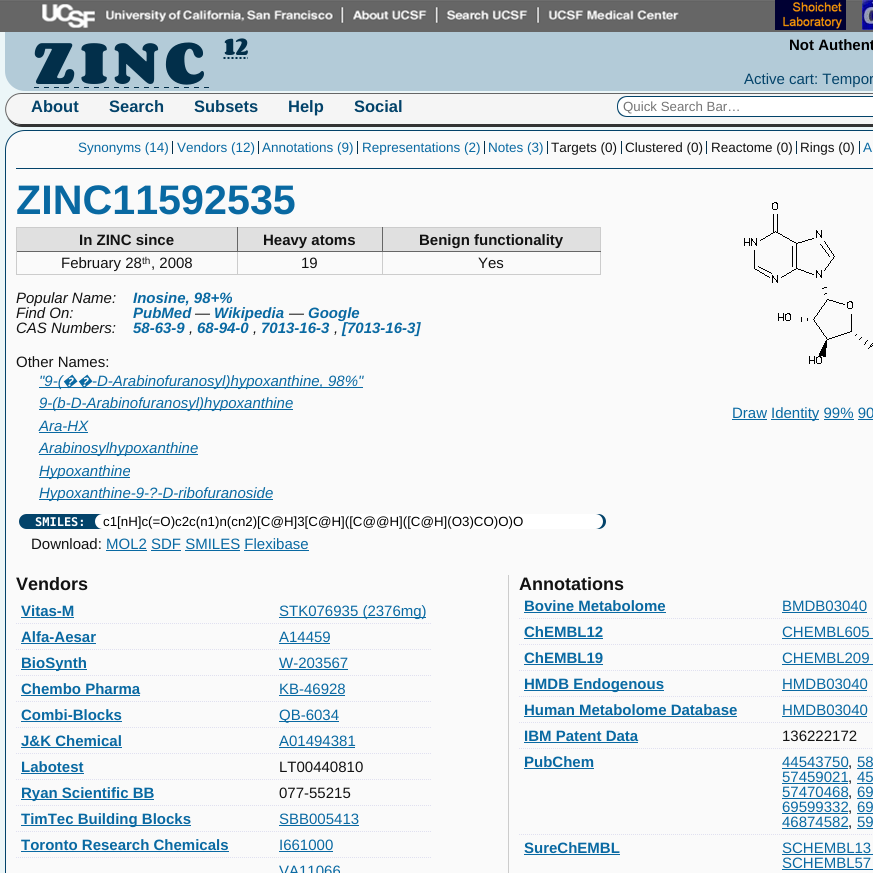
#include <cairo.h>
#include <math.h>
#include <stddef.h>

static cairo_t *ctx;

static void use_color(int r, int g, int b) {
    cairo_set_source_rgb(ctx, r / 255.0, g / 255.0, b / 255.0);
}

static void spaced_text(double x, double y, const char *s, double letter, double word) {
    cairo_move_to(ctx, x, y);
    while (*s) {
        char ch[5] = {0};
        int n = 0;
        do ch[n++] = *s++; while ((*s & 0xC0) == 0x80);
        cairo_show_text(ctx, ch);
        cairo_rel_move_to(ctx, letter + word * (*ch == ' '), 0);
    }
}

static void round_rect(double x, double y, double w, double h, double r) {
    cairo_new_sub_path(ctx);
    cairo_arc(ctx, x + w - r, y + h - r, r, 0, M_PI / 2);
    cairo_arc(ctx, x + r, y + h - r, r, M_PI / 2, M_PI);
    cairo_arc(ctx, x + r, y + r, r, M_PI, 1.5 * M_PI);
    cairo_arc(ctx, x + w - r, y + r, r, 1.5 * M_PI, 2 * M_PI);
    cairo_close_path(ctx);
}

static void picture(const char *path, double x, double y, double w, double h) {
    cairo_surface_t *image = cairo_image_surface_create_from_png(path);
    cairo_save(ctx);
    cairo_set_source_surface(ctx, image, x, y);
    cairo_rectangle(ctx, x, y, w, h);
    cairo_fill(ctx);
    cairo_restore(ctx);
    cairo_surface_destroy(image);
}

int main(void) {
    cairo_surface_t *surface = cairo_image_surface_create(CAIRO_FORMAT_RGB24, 873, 873);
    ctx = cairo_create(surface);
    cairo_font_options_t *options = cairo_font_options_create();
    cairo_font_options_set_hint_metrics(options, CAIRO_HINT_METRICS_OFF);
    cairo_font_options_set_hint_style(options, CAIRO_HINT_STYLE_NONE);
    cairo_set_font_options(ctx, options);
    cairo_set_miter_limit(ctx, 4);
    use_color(236, 246, 248);
    cairo_paint(ctx);
    use_color(102, 102, 102);
    cairo_rectangle(ctx, 0, 30, 873, 2);
    cairo_fill(ctx);
    picture("img1.png", 0, 0, 873, 30);
    use_color(179, 203, 216);
    cairo_new_path(ctx);
    cairo_move_to(ctx, 5, 32);
    cairo_line_to(ctx, 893, 32);
    cairo_line_to(ctx, 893, 71);
    cairo_curve_to(ctx, 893, 82, 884, 91, 873, 91);
    cairo_line_to(ctx, 25, 91);
    cairo_curve_to(ctx, 14, 91, 5, 82, 5, 71);
    cairo_close_path(ctx);
    cairo_fill(ctx);
    cairo_select_font_face(ctx, "Corben", CAIRO_FONT_SLANT_NORMAL, CAIRO_FONT_WEIGHT_BOLD);
    cairo_set_font_size(ctx, 52.5);
    use_color(2, 47, 74);
    spaced_text(34, 84, "ZINC", 5, 0);
    cairo_save(ctx);
    cairo_rectangle(ctx, 8, 35, 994, 53);
    cairo_clip(ctx);
    cairo_new_path(ctx);
    cairo_move_to(ctx, 34, 89.5);
    cairo_line_to(ctx, 211, 89.5);
    cairo_set_line_width(ctx, 5);
    cairo_set_dash(ctx, (double[]){5, 5}, 2, 0);
    cairo_stroke(ctx);
    cairo_restore(ctx);
    cairo_set_font_size(ctx, 21);
    cairo_move_to(ctx, 224, 55);
    cairo_show_text(ctx, "12");
    cairo_new_path(ctx);
    cairo_move_to(ctx, 223.5, 58);
    cairo_line_to(ctx, 248, 58);
    cairo_set_dash(ctx, (double[]){2, 2}, 2, 0);
    cairo_stroke(ctx);
    cairo_select_font_face(ctx, "Liberation Sans", CAIRO_FONT_SLANT_NORMAL, CAIRO_FONT_WEIGHT_BOLD);
    cairo_set_font_size(ctx, 15);
    use_color(0, 0, 0);
    cairo_move_to(ctx, 789, 50);
    cairo_show_text(ctx, "Not Authent");
    cairo_select_font_face(ctx, "Liberation Sans", CAIRO_FONT_SLANT_NORMAL, CAIRO_FONT_WEIGHT_NORMAL);
    use_color(3, 67, 106);
    cairo_move_to(ctx, 744, 84);
    cairo_show_text(ctx, "Active cart: Tempor");
    use_color(51, 51, 51);
    cairo_new_path(ctx);
    cairo_move_to(ctx, 7, 117);
    cairo_curve_to(ctx, 10, 123, 15, 127, 22, 127);
    cairo_line_to(ctx, 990, 127);
    cairo_curve_to(ctx, 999, 127, 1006, 120, 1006, 111);
    cairo_curve_to(ctx, 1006, 108, 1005, 105, 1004, 103);
    cairo_curve_to(ctx, 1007, 111, 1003, 120, 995, 124);
    cairo_line_to(ctx, 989, 125);
    cairo_line_to(ctx, 19, 125);
    cairo_curve_to(ctx, 14, 124, 10, 121, 7, 117);
    cairo_close_path(ctx);
    cairo_fill(ctx);
    use_color(245, 245, 245);
    round_rect(5, 93, 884, 32, 16);
    cairo_fill(ctx);
    cairo_new_path(ctx);
    cairo_move_to(ctx, 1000, 120);
    cairo_curve_to(ctx, 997, 123, 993, 124.5, 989, 124.5);
    cairo_line_to(ctx, 21, 124.5);
    cairo_curve_to(ctx, 17, 124.5, 13, 123, 10, 120);
    use_color(51, 51, 51);
    cairo_set_line_width(ctx, 1);
    cairo_set_dash(ctx, NULL, 0, 0);
    cairo_stroke(ctx);
    cairo_new_path(ctx);
    cairo_move_to(ctx, 10, 120);
    cairo_curve_to(ctx, 0.5, 110.5, 7.5, 93.5, 21, 93.5);
    cairo_line_to(ctx, 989, 93.5);
    cairo_curve_to(ctx, 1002.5, 93.5, 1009.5, 110.5, 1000, 120);
    use_color(102, 102, 102);
    cairo_stroke(ctx);
    cairo_select_font_face(ctx, "Liberation Sans", CAIRO_FONT_SLANT_NORMAL, CAIRO_FONT_WEIGHT_BOLD);
    cairo_set_font_size(ctx, 16.5);
    use_color(3, 67, 106);
    cairo_move_to(ctx, 31, 112);
    cairo_show_text(ctx, "About");
    cairo_move_to(ctx, 109, 112);
    cairo_show_text(ctx, "Search");
    cairo_move_to(ctx, 194, 112);
    cairo_show_text(ctx, "Subsets");
    cairo_move_to(ctx, 288, 112);
    cairo_show_text(ctx, "Help");
    cairo_move_to(ctx, 354, 112);
    cairo_show_text(ctx, "Social");
    use_color(255, 255, 255);
    round_rect(617, 96, 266, 21, 10);
    cairo_fill(ctx);
    use_color(3, 67, 106);
    cairo_set_fill_rule(ctx, CAIRO_FILL_RULE_EVEN_ODD);
    cairo_new_path(ctx);
    cairo_move_to(ctx, 627, 96);
    cairo_line_to(ctx, 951, 96);
    cairo_curve_to(ctx, 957, 96, 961, 100, 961, 106);
    cairo_line_to(ctx, 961, 107);
    cairo_curve_to(ctx, 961, 113, 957, 117, 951, 117);
    cairo_line_to(ctx, 627, 117);
    cairo_curve_to(ctx, 621, 117, 617, 113, 617, 107);
    cairo_line_to(ctx, 617, 106);
    cairo_curve_to(ctx, 617, 100, 621, 96, 627, 96);
    cairo_close_path(ctx);
    cairo_move_to(ctx, 627, 97);
    cairo_line_to(ctx, 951, 97);
    cairo_curve_to(ctx, 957, 97, 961, 101, 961, 106);
    cairo_line_to(ctx, 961, 107);
    cairo_curve_to(ctx, 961, 112, 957, 116, 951, 116);
    cairo_line_to(ctx, 627, 116);
    cairo_curve_to(ctx, 622, 116, 618, 112, 618, 107);
    cairo_line_to(ctx, 618, 106);
    cairo_curve_to(ctx, 618, 101, 622, 97, 627, 97);
    cairo_close_path(ctx);
    cairo_fill(ctx);
    cairo_select_font_face(ctx, "Liberation Sans", CAIRO_FONT_SLANT_NORMAL, CAIRO_FONT_WEIGHT_NORMAL);
    cairo_set_font_size(ctx, 13.3);
    use_color(117, 117, 117);
    cairo_move_to(ctx, 623, 111);
    cairo_show_text(ctx, "Quick Search Bar…");
    use_color(250, 250, 250);
    cairo_new_path(ctx);
    cairo_move_to(ctx, 25, 130.5);
    cairo_line_to(ctx, 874, 130.5);
    cairo_curve_to(ctx, 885, 130.5, 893.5, 139, 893.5, 150);
    cairo_line_to(ctx, 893.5, 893.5);
    cairo_line_to(ctx, 5.5, 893.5);
    cairo_line_to(ctx, 5.5, 150);
    cairo_curve_to(ctx, 5.5, 139, 14, 130.5, 25, 130.5);
    cairo_close_path(ctx);
    cairo_fill_preserve(ctx);
    use_color(3, 67, 106);
    cairo_stroke(ctx);
    cairo_rectangle(ctx, 16, 168, 857, 1);
    cairo_fill(ctx);
    cairo_set_font_size(ctx, 13.5);
    use_color(9, 105, 162);
    cairo_move_to(ctx, 78, 152);
    cairo_show_text(ctx, "Synonyms (14)");
    use_color(2, 47, 74);
    cairo_rectangle(ctx, 172, 141, 1, 13);
    cairo_fill(ctx);
    use_color(9, 105, 162);
    cairo_move_to(ctx, 177, 152);
    cairo_show_text(ctx, "Vendors (12)");
    use_color(2, 47, 74);
    cairo_rectangle(ctx, 258, 141, 1, 13);
    cairo_fill(ctx);
    use_color(9, 105, 162);
    cairo_move_to(ctx, 262, 152);
    cairo_show_text(ctx, "Annotations (9)");
    use_color(2, 47, 74);
    cairo_rectangle(ctx, 357, 141, 1, 13);
    cairo_fill(ctx);
    use_color(9, 105, 162);
    cairo_move_to(ctx, 362, 152);
    cairo_show_text(ctx, "Representations (2)");
    use_color(2, 47, 74);
    cairo_rectangle(ctx, 484, 141, 1, 13);
    cairo_fill(ctx);
    use_color(9, 105, 162);
    cairo_move_to(ctx, 488, 152);
    cairo_show_text(ctx, "Notes (3)");
    use_color(2, 47, 74);
    cairo_rectangle(ctx, 547, 141, 1, 13);
    cairo_fill(ctx);
    use_color(18, 18, 18);
    cairo_move_to(ctx, 551, 152);
    cairo_show_text(ctx, "Targets (0)");
    use_color(2, 47, 74);
    cairo_rectangle(ctx, 621, 141, 1, 13);
    cairo_fill(ctx);
    use_color(18, 18, 18);
    cairo_move_to(ctx, 625, 152);
    cairo_show_text(ctx, "Clustered (0)");
    use_color(2, 47, 74);
    cairo_rectangle(ctx, 706, 141, 1, 13);
    cairo_fill(ctx);
    use_color(18, 18, 18);
    cairo_move_to(ctx, 711, 152);
    cairo_show_text(ctx, "Reactome (0)");
    use_color(2, 47, 74);
    cairo_rectangle(ctx, 796, 141, 1, 13);
    cairo_fill(ctx);
    use_color(18, 18, 18);
    cairo_move_to(ctx, 800, 152);
    cairo_show_text(ctx, "Rings (0)");
    use_color(2, 47, 74);
    cairo_rectangle(ctx, 859, 141, 1, 13);
    cairo_fill(ctx);
    use_color(9, 105, 162);
    cairo_move_to(ctx, 863, 152);
    cairo_show_text(ctx, "A");
    cairo_select_font_face(ctx, "Liberation Sans", CAIRO_FONT_SLANT_NORMAL, CAIRO_FONT_WEIGHT_BOLD);
    cairo_set_font_size(ctx, 41.25);
    cairo_move_to(ctx, 16, 214);
    cairo_show_text(ctx, "ZINC11592535");
    picture("img2.png", 744, 202, 129, 162);
    use_color(204, 204, 204);
    cairo_rectangle(ctx, 16, 227, 585, 1);
    cairo_fill(ctx);
    cairo_rectangle(ctx, 600, 227, 1, 48);
    cairo_fill(ctx);
    cairo_rectangle(ctx, 16, 274, 585, 1);
    cairo_fill(ctx);
    cairo_rectangle(ctx, 16, 252, 1, 23);
    cairo_fill(ctx);
    use_color(224, 224, 224);
    cairo_rectangle(ctx, 17, 228, 220, 23);
    cairo_fill(ctx);
    use_color(204, 204, 204);
    cairo_rectangle(ctx, 382, 251, 1, 24);
    cairo_fill(ctx);
    use_color(102, 102, 102);
    cairo_rectangle(ctx, 382, 251, 219, 1);
    cairo_fill(ctx);
    cairo_rectangle(ctx, 382, 227, 1, 25);
    cairo_fill(ctx);
    use_color(204, 204, 204);
    cairo_rectangle(ctx, 237, 251, 1, 24);
    cairo_fill(ctx);
    use_color(102, 102, 102);
    cairo_rectangle(ctx, 237, 251, 146, 1);
    cairo_fill(ctx);
    cairo_rectangle(ctx, 237, 227, 1, 25);
    cairo_fill(ctx);
    cairo_rectangle(ctx, 16, 251, 222, 1);
    cairo_fill(ctx);
    use_color(204, 204, 204);
    cairo_rectangle(ctx, 16, 227, 1, 25);
    cairo_fill(ctx);
    cairo_set_font_size(ctx, 15);
    use_color(18, 18, 18);
    cairo_move_to(ctx, 79, 245);
    cairo_show_text(ctx, "In ZINC since");
    use_color(224, 224, 224);
    cairo_rectangle(ctx, 238, 228, 144, 23);
    cairo_fill(ctx);
    use_color(18, 18, 18);
    cairo_move_to(ctx, 263, 245);
    cairo_show_text(ctx, "Heavy atoms");
    use_color(224, 224, 224);
    cairo_rectangle(ctx, 383, 228, 217, 23);
    cairo_fill(ctx);
    use_color(18, 18, 18);
    cairo_move_to(ctx, 419, 245);
    cairo_show_text(ctx, "Benign functionality");
    cairo_select_font_face(ctx, "Liberation Sans", CAIRO_FONT_SLANT_NORMAL, CAIRO_FONT_WEIGHT_NORMAL);
    cairo_move_to(ctx, 61, 268);
    cairo_show_text(ctx, "February 28");
    cairo_set_font_size(ctx, 10);
    cairo_move_to(ctx, 142, 264);
    cairo_show_text(ctx, "th");
    cairo_set_font_size(ctx, 15);
    cairo_move_to(ctx, 151, 268);
    cairo_show_text(ctx, ", 2008");
    cairo_move_to(ctx, 301, 268);
    cairo_show_text(ctx, "19");
    cairo_move_to(ctx, 478, 268);
    cairo_show_text(ctx, "Yes");
    cairo_select_font_face(ctx, "Liberation Sans", CAIRO_FONT_SLANT_ITALIC, CAIRO_FONT_WEIGHT_NORMAL);
    cairo_move_to(ctx, 16, 303);
    cairo_show_text(ctx, "Popular Name:");
    cairo_select_font_face(ctx, "Liberation Sans", CAIRO_FONT_SLANT_ITALIC, CAIRO_FONT_WEIGHT_BOLD);
    use_color(9, 105, 162);
    cairo_move_to(ctx, 133, 303);
    cairo_show_text(ctx, "Inosine, 98+%");
    cairo_select_font_face(ctx, "Liberation Sans", CAIRO_FONT_SLANT_ITALIC, CAIRO_FONT_WEIGHT_NORMAL);
    use_color(18, 18, 18);
    cairo_move_to(ctx, 16, 318);
    cairo_show_text(ctx, "Find On:");
    cairo_select_font_face(ctx, "Liberation Sans", CAIRO_FONT_SLANT_ITALIC, CAIRO_FONT_WEIGHT_BOLD);
    use_color(9, 105, 162);
    cairo_move_to(ctx, 133, 318);
    cairo_show_text(ctx, "PubMed");
    cairo_select_font_face(ctx, "Liberation Sans", CAIRO_FONT_SLANT_ITALIC, CAIRO_FONT_WEIGHT_NORMAL);
    use_color(18, 18, 18);
    cairo_move_to(ctx, 195, 318);
    cairo_show_text(ctx, "—");
    cairo_select_font_face(ctx, "Liberation Sans", CAIRO_FONT_SLANT_ITALIC, CAIRO_FONT_WEIGHT_BOLD);
    use_color(9, 105, 162);
    cairo_move_to(ctx, 214, 318);
    cairo_show_text(ctx, "Wikipedia");
    cairo_select_font_face(ctx, "Liberation Sans", CAIRO_FONT_SLANT_ITALIC, CAIRO_FONT_WEIGHT_NORMAL);
    use_color(18, 18, 18);
    cairo_move_to(ctx, 289, 318);
    cairo_show_text(ctx, "—");
    cairo_select_font_face(ctx, "Liberation Sans", CAIRO_FONT_SLANT_ITALIC, CAIRO_FONT_WEIGHT_BOLD);
    use_color(9, 105, 162);
    cairo_move_to(ctx, 308, 318);
    cairo_show_text(ctx, "Google");
    cairo_select_font_face(ctx, "Liberation Sans", CAIRO_FONT_SLANT_ITALIC, CAIRO_FONT_WEIGHT_NORMAL);
    use_color(18, 18, 18);
    cairo_move_to(ctx, 16, 333);
    cairo_show_text(ctx, "CAS Numbers:");
    cairo_select_font_face(ctx, "Liberation Sans", CAIRO_FONT_SLANT_ITALIC, CAIRO_FONT_WEIGHT_BOLD);
    use_color(9, 105, 162);
    cairo_move_to(ctx, 133, 333);
    cairo_show_text(ctx, "58-63-9");
    cairo_select_font_face(ctx, "Liberation Sans", CAIRO_FONT_SLANT_ITALIC, CAIRO_FONT_WEIGHT_NORMAL);
    use_color(18, 18, 18);
    cairo_move_to(ctx, 189, 333);
    cairo_show_text(ctx, ",");
    cairo_select_font_face(ctx, "Liberation Sans", CAIRO_FONT_SLANT_ITALIC, CAIRO_FONT_WEIGHT_BOLD);
    use_color(9, 105, 162);
    cairo_move_to(ctx, 197, 333);
    cairo_show_text(ctx, "68-94-0");
    cairo_select_font_face(ctx, "Liberation Sans", CAIRO_FONT_SLANT_ITALIC, CAIRO_FONT_WEIGHT_NORMAL);
    use_color(18, 18, 18);
    cairo_move_to(ctx, 253, 333);
    cairo_show_text(ctx, ",");
    cairo_select_font_face(ctx, "Liberation Sans", CAIRO_FONT_SLANT_ITALIC, CAIRO_FONT_WEIGHT_BOLD);
    use_color(9, 105, 162);
    cairo_move_to(ctx, 261, 333);
    cairo_show_text(ctx, "7013-16-3");
    cairo_select_font_face(ctx, "Liberation Sans", CAIRO_FONT_SLANT_ITALIC, CAIRO_FONT_WEIGHT_NORMAL);
    use_color(18, 18, 18);
    cairo_move_to(ctx, 334, 333);
    cairo_show_text(ctx, ",");
    cairo_select_font_face(ctx, "Liberation Sans", CAIRO_FONT_SLANT_ITALIC, CAIRO_FONT_WEIGHT_BOLD);
    use_color(9, 105, 162);
    cairo_move_to(ctx, 342, 333);
    cairo_show_text(ctx, "[7013-16-3]");
    cairo_select_font_face(ctx, "Liberation Sans", CAIRO_FONT_SLANT_NORMAL, CAIRO_FONT_WEIGHT_NORMAL);
    use_color(18, 18, 18);
    cairo_move_to(ctx, 16, 367);
    cairo_show_text(ctx, "Other Names:");
    use_color(9, 105, 162);
    cairo_rectangle(ctx, 39, 387, 324, 1);
    cairo_fill(ctx);
    cairo_select_font_face(ctx, "Liberation Sans", CAIRO_FONT_SLANT_ITALIC, CAIRO_FONT_WEIGHT_NORMAL);
    cairo_move_to(ctx, 39, 386);
    cairo_show_text(ctx, "\"9-(");
    cairo_select_font_face(ctx, "Noto Sans", CAIRO_FONT_SLANT_ITALIC, CAIRO_FONT_WEIGHT_NORMAL);
    cairo_move_to(ctx, 62, 386);
    cairo_show_text(ctx, "��");
    cairo_select_font_face(ctx, "Liberation Sans", CAIRO_FONT_SLANT_ITALIC, CAIRO_FONT_WEIGHT_NORMAL);
    cairo_move_to(ctx, 92, 386);
    cairo_show_text(ctx, "-D-Arabinofuranosyl)hypoxanthine, 98%\"");
    cairo_rectangle(ctx, 39, 409, 254, 1);
    cairo_fill(ctx);
    cairo_move_to(ctx, 39, 408);
    cairo_show_text(ctx, "9-(b-D-Arabinofuranosyl)hypoxanthine");
    cairo_move_to(ctx, 39, 431);
    cairo_show_text(ctx, "Ara-HX");
    cairo_rectangle(ctx, 39, 432, 49, 1);
    cairo_fill(ctx);
    cairo_rectangle(ctx, 39, 454, 159, 1);
    cairo_fill(ctx);
    cairo_move_to(ctx, 39, 453);
    cairo_show_text(ctx, "Arabinosylhypoxanthine");
    cairo_rectangle(ctx, 39, 477, 91, 1);
    cairo_fill(ctx);
    cairo_move_to(ctx, 39, 476);
    cairo_show_text(ctx, "Hypoxanthine");
    cairo_rectangle(ctx, 39, 499, 234, 1);
    cairo_fill(ctx);
    cairo_move_to(ctx, 39, 498);
    cairo_show_text(ctx, "Hypoxanthine-9-?-D-ribofuranoside");
    use_color(3, 67, 106);
    round_rect(19, 514, 587, 15, 7.5);
    cairo_fill(ctx);
    cairo_select_font_face(ctx, "DejaVu Sans Mono", CAIRO_FONT_SLANT_NORMAL, CAIRO_FONT_WEIGHT_BOLD);
    cairo_set_font_size(ctx, 12);
    use_color(255, 255, 255);
    cairo_move_to(ctx, 35, 526);
    cairo_show_text(ctx, "SMILES:");
    round_rect(95, 514, 508, 15, 7.5);
    cairo_fill(ctx);
    cairo_select_font_face(ctx, "Liberation Sans", CAIRO_FONT_SLANT_NORMAL, CAIRO_FONT_WEIGHT_NORMAL);
    cairo_set_font_size(ctx, 13.3);
    use_color(0, 0, 0);
    cairo_move_to(ctx, 103, 526);
    cairo_show_text(ctx, "c1[nH]c(=O)c2c(n1)n(cn2)[C@H]3[C@H]([C@@H]([C@H](O3)CO)O)O");
    cairo_set_font_size(ctx, 15);
    use_color(18, 18, 18);
    cairo_move_to(ctx, 31, 549);
    cairo_show_text(ctx, "Download:");
    use_color(9, 105, 162);
    cairo_move_to(ctx, 106, 549);
    cairo_show_text(ctx, "MOL2 SDF SMILES Flexibase");
    cairo_rectangle(ctx, 106, 550, 41, 1);
    cairo_fill(ctx);
    cairo_rectangle(ctx, 151, 550, 30, 1);
    cairo_fill(ctx);
    cairo_rectangle(ctx, 185, 550, 55, 1);
    cairo_fill(ctx);
    cairo_rectangle(ctx, 244, 550, 65, 1);
    cairo_fill(ctx);
    cairo_move_to(ctx, 732, 418);
    cairo_show_text(ctx, "Draw");
    cairo_rectangle(ctx, 732, 419, 35, 1);
    cairo_fill(ctx);
    cairo_rectangle(ctx, 771, 419, 48, 1);
    cairo_fill(ctx);
    cairo_move_to(ctx, 771, 418);
    cairo_show_text(ctx, "Identity 99% 90");
    cairo_rectangle(ctx, 824, 419, 30, 1);
    cairo_fill(ctx);
    cairo_rectangle(ctx, 858, 419, 15, 1);
    cairo_fill(ctx);
    cairo_select_font_face(ctx, "Liberation Sans", CAIRO_FONT_SLANT_NORMAL, CAIRO_FONT_WEIGHT_BOLD);
    cairo_set_font_size(ctx, 18);
    use_color(18, 18, 18);
    cairo_move_to(ctx, 16, 590);
    cairo_show_text(ctx, "Vendors");
    use_color(204, 204, 204);
    cairo_rectangle(ctx, 508, 575, 1, 298);
    cairo_fill(ctx);
    use_color(18, 18, 18);
    cairo_move_to(ctx, 519, 590);
    cairo_show_text(ctx, "Annotations");
    cairo_new_path(ctx);
    cairo_move_to(ctx, 16, 623.5);
    cairo_line_to(ctx, 274, 623.5);
    use_color(224, 224, 240);
    cairo_set_dash(ctx, (double[]){1, 1}, 2, 0);
    cairo_stroke(ctx);
    cairo_set_font_size(ctx, 15);
    use_color(9, 105, 162);
    cairo_move_to(ctx, 21, 616);
    cairo_show_text(ctx, "Vitas-M");
    cairo_rectangle(ctx, 21, 617, 53, 1);
    cairo_fill(ctx);
    cairo_new_path(ctx);
    cairo_move_to(ctx, 274, 623.5);
    cairo_line_to(ctx, 431, 623.5);
    use_color(224, 224, 240);
    cairo_stroke(ctx);
    use_color(9, 105, 162);
    cairo_rectangle(ctx, 279, 617, 147, 1);
    cairo_fill(ctx);
    cairo_select_font_face(ctx, "Liberation Sans", CAIRO_FONT_SLANT_NORMAL, CAIRO_FONT_WEIGHT_NORMAL);
    cairo_move_to(ctx, 279, 616);
    cairo_show_text(ctx, "STK076935 (2376mg)");
    cairo_new_path(ctx);
    cairo_move_to(ctx, 16, 649.5);
    cairo_line_to(ctx, 274, 649.5);
    use_color(224, 224, 240);
    cairo_stroke(ctx);
    cairo_select_font_face(ctx, "Liberation Sans", CAIRO_FONT_SLANT_NORMAL, CAIRO_FONT_WEIGHT_BOLD);
    use_color(9, 105, 162);
    cairo_move_to(ctx, 21, 642);
    cairo_show_text(ctx, "Alfa-Aesar");
    cairo_rectangle(ctx, 21, 643, 75, 1);
    cairo_fill(ctx);
    cairo_new_path(ctx);
    cairo_move_to(ctx, 274, 649.5);
    cairo_line_to(ctx, 431, 649.5);
    use_color(224, 224, 240);
    cairo_stroke(ctx);
    cairo_select_font_face(ctx, "Liberation Sans", CAIRO_FONT_SLANT_NORMAL, CAIRO_FONT_WEIGHT_NORMAL);
    use_color(9, 105, 162);
    cairo_move_to(ctx, 279, 642);
    cairo_show_text(ctx, "A14459");
    cairo_rectangle(ctx, 279, 643, 51, 1);
    cairo_fill(ctx);
    cairo_new_path(ctx);
    cairo_move_to(ctx, 16, 675.5);
    cairo_line_to(ctx, 274, 675.5);
    use_color(224, 224, 240);
    cairo_stroke(ctx);
    use_color(9, 105, 162);
    cairo_rectangle(ctx, 21, 669, 66, 1);
    cairo_fill(ctx);
    cairo_select_font_face(ctx, "Liberation Sans", CAIRO_FONT_SLANT_NORMAL, CAIRO_FONT_WEIGHT_BOLD);
    cairo_move_to(ctx, 21, 668);
    cairo_show_text(ctx, "BioSynth");
    cairo_new_path(ctx);
    cairo_move_to(ctx, 274, 675.5);
    cairo_line_to(ctx, 431, 675.5);
    use_color(224, 224, 240);
    cairo_stroke(ctx);
    cairo_select_font_face(ctx, "Liberation Sans", CAIRO_FONT_SLANT_NORMAL, CAIRO_FONT_WEIGHT_NORMAL);
    use_color(9, 105, 162);
    cairo_move_to(ctx, 279, 668);
    cairo_show_text(ctx, "W-203567");
    cairo_rectangle(ctx, 279, 669, 69, 1);
    cairo_fill(ctx);
    cairo_new_path(ctx);
    cairo_move_to(ctx, 16, 701.5);
    cairo_line_to(ctx, 274, 701.5);
    use_color(224, 224, 240);
    cairo_stroke(ctx);
    cairo_select_font_face(ctx, "Liberation Sans", CAIRO_FONT_SLANT_NORMAL, CAIRO_FONT_WEIGHT_BOLD);
    use_color(9, 105, 162);
    cairo_move_to(ctx, 21, 694);
    cairo_show_text(ctx, "Chembo Pharma");
    cairo_rectangle(ctx, 21, 695, 119, 1);
    cairo_fill(ctx);
    cairo_new_path(ctx);
    cairo_move_to(ctx, 274, 701.5);
    cairo_line_to(ctx, 431, 701.5);
    use_color(224, 224, 240);
    cairo_stroke(ctx);
    cairo_select_font_face(ctx, "Liberation Sans", CAIRO_FONT_SLANT_NORMAL, CAIRO_FONT_WEIGHT_NORMAL);
    use_color(9, 105, 162);
    cairo_move_to(ctx, 279, 694);
    cairo_show_text(ctx, "KB-46928");
    cairo_rectangle(ctx, 279, 695, 66, 1);
    cairo_fill(ctx);
    cairo_new_path(ctx);
    cairo_move_to(ctx, 16, 727.5);
    cairo_line_to(ctx, 274, 727.5);
    use_color(224, 224, 240);
    cairo_stroke(ctx);
    cairo_select_font_face(ctx, "Liberation Sans", CAIRO_FONT_SLANT_NORMAL, CAIRO_FONT_WEIGHT_BOLD);
    use_color(9, 105, 162);
    cairo_move_to(ctx, 21, 720);
    cairo_show_text(ctx, "Combi-Blocks");
    cairo_rectangle(ctx, 21, 721, 101, 1);
    cairo_fill(ctx);
    cairo_new_path(ctx);
    cairo_move_to(ctx, 274, 727.5);
    cairo_line_to(ctx, 431, 727.5);
    use_color(224, 224, 240);
    cairo_stroke(ctx);
    use_color(9, 105, 162);
    cairo_rectangle(ctx, 279, 721, 60, 1);
    cairo_fill(ctx);
    cairo_select_font_face(ctx, "Liberation Sans", CAIRO_FONT_SLANT_NORMAL, CAIRO_FONT_WEIGHT_NORMAL);
    cairo_move_to(ctx, 279, 720);
    cairo_show_text(ctx, "QB-6034");
    cairo_new_path(ctx);
    cairo_move_to(ctx, 16, 753.5);
    cairo_line_to(ctx, 274, 753.5);
    use_color(224, 224, 240);
    cairo_stroke(ctx);
    cairo_select_font_face(ctx, "Liberation Sans", CAIRO_FONT_SLANT_NORMAL, CAIRO_FONT_WEIGHT_BOLD);
    use_color(9, 105, 162);
    cairo_move_to(ctx, 21, 746);
    cairo_show_text(ctx, "J&K Chemical");
    cairo_rectangle(ctx, 21, 747, 101, 1);
    cairo_fill(ctx);
    cairo_new_path(ctx);
    cairo_move_to(ctx, 274, 753.5);
    cairo_line_to(ctx, 431, 753.5);
    use_color(224, 224, 240);
    cairo_stroke(ctx);
    cairo_select_font_face(ctx, "Liberation Sans", CAIRO_FONT_SLANT_NORMAL, CAIRO_FONT_WEIGHT_NORMAL);
    use_color(9, 105, 162);
    cairo_move_to(ctx, 279, 746);
    cairo_show_text(ctx, "A01494381");
    cairo_rectangle(ctx, 279, 747, 76, 1);
    cairo_fill(ctx);
    cairo_new_path(ctx);
    cairo_move_to(ctx, 16, 779.5);
    cairo_line_to(ctx, 274, 779.5);
    use_color(224, 224, 240);
    cairo_stroke(ctx);
    cairo_select_font_face(ctx, "Liberation Sans", CAIRO_FONT_SLANT_NORMAL, CAIRO_FONT_WEIGHT_BOLD);
    use_color(9, 105, 162);
    cairo_move_to(ctx, 21, 772);
    cairo_show_text(ctx, "Labotest");
    cairo_rectangle(ctx, 21, 773, 63, 1);
    cairo_fill(ctx);
    cairo_new_path(ctx);
    cairo_move_to(ctx, 274, 779.5);
    cairo_line_to(ctx, 431, 779.5);
    use_color(224, 224, 240);
    cairo_stroke(ctx);
    cairo_select_font_face(ctx, "Liberation Sans", CAIRO_FONT_SLANT_NORMAL, CAIRO_FONT_WEIGHT_NORMAL);
    use_color(18, 18, 18);
    cairo_move_to(ctx, 279, 772);
    cairo_show_text(ctx, "LT00440810");
    cairo_new_path(ctx);
    cairo_move_to(ctx, 16, 805.5);
    cairo_line_to(ctx, 274, 805.5);
    use_color(224, 224, 240);
    cairo_stroke(ctx);
    use_color(9, 105, 162);
    cairo_rectangle(ctx, 21, 799, 133, 1);
    cairo_fill(ctx);
    cairo_select_font_face(ctx, "Liberation Sans", CAIRO_FONT_SLANT_NORMAL, CAIRO_FONT_WEIGHT_BOLD);
    cairo_move_to(ctx, 21, 798);
    cairo_show_text(ctx, "Ryan Scientific BB");
    cairo_new_path(ctx);
    cairo_move_to(ctx, 274, 805.5);
    cairo_line_to(ctx, 431, 805.5);
    use_color(224, 224, 240);
    cairo_stroke(ctx);
    cairo_select_font_face(ctx, "Liberation Sans", CAIRO_FONT_SLANT_NORMAL, CAIRO_FONT_WEIGHT_NORMAL);
    use_color(18, 18, 18);
    cairo_move_to(ctx, 279, 798);
    cairo_show_text(ctx, "077-55215");
    cairo_new_path(ctx);
    cairo_move_to(ctx, 16, 831.5);
    cairo_line_to(ctx, 274, 831.5);
    use_color(224, 224, 240);
    cairo_stroke(ctx);
    use_color(9, 105, 162);
    cairo_rectangle(ctx, 21, 825, 170, 1);
    cairo_fill(ctx);
    cairo_select_font_face(ctx, "Liberation Sans", CAIRO_FONT_SLANT_NORMAL, CAIRO_FONT_WEIGHT_BOLD);
    cairo_move_to(ctx, 21, 824);
    cairo_show_text(ctx, "TimTec Building Blocks");
    cairo_new_path(ctx);
    cairo_move_to(ctx, 274, 831.5);
    cairo_line_to(ctx, 431, 831.5);
    use_color(224, 224, 240);
    cairo_stroke(ctx);
    cairo_select_font_face(ctx, "Liberation Sans", CAIRO_FONT_SLANT_NORMAL, CAIRO_FONT_WEIGHT_NORMAL);
    use_color(9, 105, 162);
    cairo_move_to(ctx, 279, 824);
    cairo_show_text(ctx, "SBB005413");
    cairo_rectangle(ctx, 279, 825, 80, 1);
    cairo_fill(ctx);
    cairo_new_path(ctx);
    cairo_move_to(ctx, 16, 857.5);
    cairo_line_to(ctx, 274, 857.5);
    use_color(224, 224, 240);
    cairo_stroke(ctx);
    cairo_select_font_face(ctx, "Liberation Sans", CAIRO_FONT_SLANT_NORMAL, CAIRO_FONT_WEIGHT_BOLD);
    use_color(9, 105, 162);
    cairo_move_to(ctx, 21, 850);
    cairo_show_text(ctx, "Toronto Research Chemicals");
    cairo_rectangle(ctx, 21, 851, 208, 1);
    cairo_fill(ctx);
    cairo_new_path(ctx);
    cairo_move_to(ctx, 274, 857.5);
    cairo_line_to(ctx, 431, 857.5);
    use_color(224, 224, 240);
    cairo_stroke(ctx);
    cairo_select_font_face(ctx, "Liberation Sans", CAIRO_FONT_SLANT_NORMAL, CAIRO_FONT_WEIGHT_NORMAL);
    use_color(9, 105, 162);
    cairo_move_to(ctx, 279, 850);
    cairo_show_text(ctx, "I661000");
    cairo_rectangle(ctx, 279, 851, 54, 1);
    cairo_fill(ctx);
    cairo_move_to(ctx, 279, 876);
    cairo_show_text(ctx, "VA11066");
    cairo_new_path(ctx);
    cairo_move_to(ctx, 519, 618.5);
    cairo_line_to(ctx, 777, 618.5);
    use_color(224, 224, 240);
    cairo_stroke(ctx);
    cairo_select_font_face(ctx, "Liberation Sans", CAIRO_FONT_SLANT_NORMAL, CAIRO_FONT_WEIGHT_BOLD);
    use_color(9, 105, 162);
    cairo_move_to(ctx, 524, 611);
    cairo_show_text(ctx, "Bovine Metabolome");
    cairo_rectangle(ctx, 524, 612, 142, 1);
    cairo_fill(ctx);
    cairo_new_path(ctx);
    cairo_move_to(ctx, 777, 618.5);
    cairo_line_to(ctx, 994, 618.5);
    use_color(224, 224, 240);
    cairo_stroke(ctx);
    cairo_select_font_face(ctx, "Liberation Sans", CAIRO_FONT_SLANT_NORMAL, CAIRO_FONT_WEIGHT_NORMAL);
    use_color(9, 105, 162);
    cairo_move_to(ctx, 782, 611);
    cairo_show_text(ctx, "BMDB03040");
    cairo_rectangle(ctx, 782, 612, 85, 1);
    cairo_fill(ctx);
    cairo_new_path(ctx);
    cairo_move_to(ctx, 519, 644.5);
    cairo_line_to(ctx, 777, 644.5);
    use_color(224, 224, 240);
    cairo_stroke(ctx);
    cairo_select_font_face(ctx, "Liberation Sans", CAIRO_FONT_SLANT_NORMAL, CAIRO_FONT_WEIGHT_BOLD);
    use_color(9, 105, 162);
    cairo_move_to(ctx, 524, 637);
    cairo_show_text(ctx, "ChEMBL12");
    cairo_rectangle(ctx, 524, 638, 79, 1);
    cairo_fill(ctx);
    cairo_new_path(ctx);
    cairo_move_to(ctx, 777, 644.5);
    cairo_line_to(ctx, 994, 644.5);
    use_color(224, 224, 240);
    cairo_stroke(ctx);
    cairo_select_font_face(ctx, "Liberation Sans", CAIRO_FONT_SLANT_NORMAL, CAIRO_FONT_WEIGHT_NORMAL);
    use_color(9, 105, 162);
    cairo_move_to(ctx, 782, 637);
    cairo_show_text(ctx, "CHEMBL605");
    cairo_rectangle(ctx, 782, 638, 91, 1);
    cairo_fill(ctx);
    cairo_new_path(ctx);
    cairo_move_to(ctx, 519, 670.5);
    cairo_line_to(ctx, 777, 670.5);
    use_color(224, 224, 240);
    cairo_stroke(ctx);
    cairo_select_font_face(ctx, "Liberation Sans", CAIRO_FONT_SLANT_NORMAL, CAIRO_FONT_WEIGHT_BOLD);
    use_color(9, 105, 162);
    cairo_move_to(ctx, 524, 663);
    cairo_show_text(ctx, "ChEMBL19");
    cairo_rectangle(ctx, 524, 664, 79, 1);
    cairo_fill(ctx);
    cairo_new_path(ctx);
    cairo_move_to(ctx, 777, 670.5);
    cairo_line_to(ctx, 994, 670.5);
    use_color(224, 224, 240);
    cairo_stroke(ctx);
    cairo_select_font_face(ctx, "Liberation Sans", CAIRO_FONT_SLANT_NORMAL, CAIRO_FONT_WEIGHT_NORMAL);
    use_color(9, 105, 162);
    cairo_move_to(ctx, 782, 663);
    cairo_show_text(ctx, "CHEMBL209");
    cairo_rectangle(ctx, 782, 664, 91, 1);
    cairo_fill(ctx);
    cairo_new_path(ctx);
    cairo_move_to(ctx, 519, 696.5);
    cairo_line_to(ctx, 777, 696.5);
    use_color(224, 224, 240);
    cairo_stroke(ctx);
    use_color(9, 105, 162);
    cairo_rectangle(ctx, 524, 690, 140, 1);
    cairo_fill(ctx);
    cairo_select_font_face(ctx, "Liberation Sans", CAIRO_FONT_SLANT_NORMAL, CAIRO_FONT_WEIGHT_BOLD);
    cairo_move_to(ctx, 524, 689);
    cairo_show_text(ctx, "HMDB Endogenous");
    cairo_new_path(ctx);
    cairo_move_to(ctx, 777, 696.5);
    cairo_line_to(ctx, 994, 696.5);
    use_color(224, 224, 240);
    cairo_stroke(ctx);
    cairo_select_font_face(ctx, "Liberation Sans", CAIRO_FONT_SLANT_NORMAL, CAIRO_FONT_WEIGHT_NORMAL);
    use_color(9, 105, 162);
    cairo_move_to(ctx, 782, 689);
    cairo_show_text(ctx, "HMDB03040");
    cairo_rectangle(ctx, 782, 690, 85, 1);
    cairo_fill(ctx);
    cairo_new_path(ctx);
    cairo_move_to(ctx, 519, 722.5);
    cairo_line_to(ctx, 777, 722.5);
    use_color(224, 224, 240);
    cairo_stroke(ctx);
    cairo_select_font_face(ctx, "Liberation Sans", CAIRO_FONT_SLANT_NORMAL, CAIRO_FONT_WEIGHT_BOLD);
    use_color(9, 105, 162);
    cairo_move_to(ctx, 524, 715);
    cairo_show_text(ctx, "Human Metabolome Database");
    cairo_rectangle(ctx, 524, 716, 213, 1);
    cairo_fill(ctx);
    cairo_new_path(ctx);
    cairo_move_to(ctx, 777, 722.5);
    cairo_line_to(ctx, 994, 722.5);
    use_color(224, 224, 240);
    cairo_stroke(ctx);
    cairo_select_font_face(ctx, "Liberation Sans", CAIRO_FONT_SLANT_NORMAL, CAIRO_FONT_WEIGHT_NORMAL);
    use_color(9, 105, 162);
    cairo_move_to(ctx, 782, 715);
    cairo_show_text(ctx, "HMDB03040");
    cairo_rectangle(ctx, 782, 716, 85, 1);
    cairo_fill(ctx);
    cairo_new_path(ctx);
    cairo_move_to(ctx, 519, 748.5);
    cairo_line_to(ctx, 777, 748.5);
    use_color(224, 224, 240);
    cairo_stroke(ctx);
    cairo_select_font_face(ctx, "Liberation Sans", CAIRO_FONT_SLANT_NORMAL, CAIRO_FONT_WEIGHT_BOLD);
    use_color(9, 105, 162);
    cairo_move_to(ctx, 524, 741);
    cairo_show_text(ctx, "IBM Patent Data");
    cairo_rectangle(ctx, 524, 742, 114, 1);
    cairo_fill(ctx);
    cairo_new_path(ctx);
    cairo_move_to(ctx, 777, 748.5);
    cairo_line_to(ctx, 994, 748.5);
    use_color(224, 224, 240);
    cairo_stroke(ctx);
    cairo_select_font_face(ctx, "Liberation Sans", CAIRO_FONT_SLANT_NORMAL, CAIRO_FONT_WEIGHT_NORMAL);
    use_color(18, 18, 18);
    cairo_move_to(ctx, 782, 741);
    cairo_show_text(ctx, "136222172");
    cairo_new_path(ctx);
    cairo_move_to(ctx, 519, 834.5);
    cairo_line_to(ctx, 777, 834.5);
    use_color(224, 224, 240);
    cairo_stroke(ctx);
    cairo_select_font_face(ctx, "Liberation Sans", CAIRO_FONT_SLANT_NORMAL, CAIRO_FONT_WEIGHT_BOLD);
    use_color(9, 105, 162);
    cairo_move_to(ctx, 524, 767);
    cairo_show_text(ctx, "PubChem");
    cairo_rectangle(ctx, 524, 768, 70, 1);
    cairo_fill(ctx);
    cairo_new_path(ctx);
    cairo_move_to(ctx, 777, 834.5);
    cairo_line_to(ctx, 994, 834.5);
    use_color(224, 224, 240);
    cairo_stroke(ctx);
    cairo_select_font_face(ctx, "Liberation Sans", CAIRO_FONT_SLANT_NORMAL, CAIRO_FONT_WEIGHT_NORMAL);
    use_color(9, 105, 162);
    cairo_move_to(ctx, 782, 767);
    cairo_show_text(ctx, "44543750");
    cairo_rectangle(ctx, 782, 768, 66, 1);
    cairo_fill(ctx);
    use_color(18, 18, 18);
    cairo_move_to(ctx, 848, 767);
    cairo_show_text(ctx, ",");
    use_color(9, 105, 162);
    cairo_rectangle(ctx, 857, 768, 16, 1);
    cairo_fill(ctx);
    cairo_move_to(ctx, 857, 767);
    cairo_show_text(ctx, "58");
    cairo_move_to(ctx, 782, 782);
    cairo_show_text(ctx, "57459021");
    cairo_rectangle(ctx, 782, 783, 66, 1);
    cairo_fill(ctx);
    use_color(18, 18, 18);
    cairo_move_to(ctx, 848, 782);
    cairo_show_text(ctx, ",");
    use_color(9, 105, 162);
    cairo_rectangle(ctx, 857, 783, 16, 1);
    cairo_fill(ctx);
    cairo_move_to(ctx, 857, 782);
    cairo_show_text(ctx, "45");
    cairo_move_to(ctx, 782, 797);
    cairo_show_text(ctx, "57470468");
    cairo_rectangle(ctx, 782, 798, 66, 1);
    cairo_fill(ctx);
    use_color(18, 18, 18);
    cairo_move_to(ctx, 848, 797);
    cairo_show_text(ctx, ",");
    use_color(9, 105, 162);
    cairo_rectangle(ctx, 857, 798, 16, 1);
    cairo_fill(ctx);
    cairo_move_to(ctx, 857, 797);
    cairo_show_text(ctx, "69");
    cairo_move_to(ctx, 782, 812);
    cairo_show_text(ctx, "69599332");
    cairo_rectangle(ctx, 782, 813, 66, 1);
    cairo_fill(ctx);
    use_color(18, 18, 18);
    cairo_move_to(ctx, 848, 812);
    cairo_show_text(ctx, ",");
    use_color(9, 105, 162);
    cairo_rectangle(ctx, 857, 813, 16, 1);
    cairo_fill(ctx);
    cairo_move_to(ctx, 857, 812);
    cairo_show_text(ctx, "69");
    cairo_move_to(ctx, 782, 827);
    cairo_show_text(ctx, "46874582");
    cairo_rectangle(ctx, 782, 828, 66, 1);
    cairo_fill(ctx);
    use_color(18, 18, 18);
    cairo_move_to(ctx, 848, 827);
    cairo_show_text(ctx, ",");
    use_color(9, 105, 162);
    cairo_rectangle(ctx, 857, 828, 16, 1);
    cairo_fill(ctx);
    cairo_move_to(ctx, 857, 827);
    cairo_show_text(ctx, "59");
    cairo_select_font_face(ctx, "Liberation Sans", CAIRO_FONT_SLANT_NORMAL, CAIRO_FONT_WEIGHT_BOLD);
    cairo_move_to(ctx, 524, 853);
    cairo_show_text(ctx, "SureChEMBL");
    cairo_rectangle(ctx, 524, 854, 96, 1);
    cairo_fill(ctx);
    cairo_select_font_face(ctx, "Liberation Sans", CAIRO_FONT_SLANT_NORMAL, CAIRO_FONT_WEIGHT_NORMAL);
    cairo_move_to(ctx, 782, 853);
    cairo_show_text(ctx, "SCHEMBL13");
    cairo_rectangle(ctx, 782, 854, 91, 1);
    cairo_fill(ctx);
    cairo_move_to(ctx, 782, 868);
    cairo_show_text(ctx, "SCHEMBL57");
    cairo_rectangle(ctx, 782, 869, 91, 1);
    cairo_fill(ctx);
    cairo_surface_write_to_png(surface, "result.png");
    cairo_font_options_destroy(options);
    cairo_destroy(ctx);
    cairo_surface_destroy(surface);
    return 0;
}
